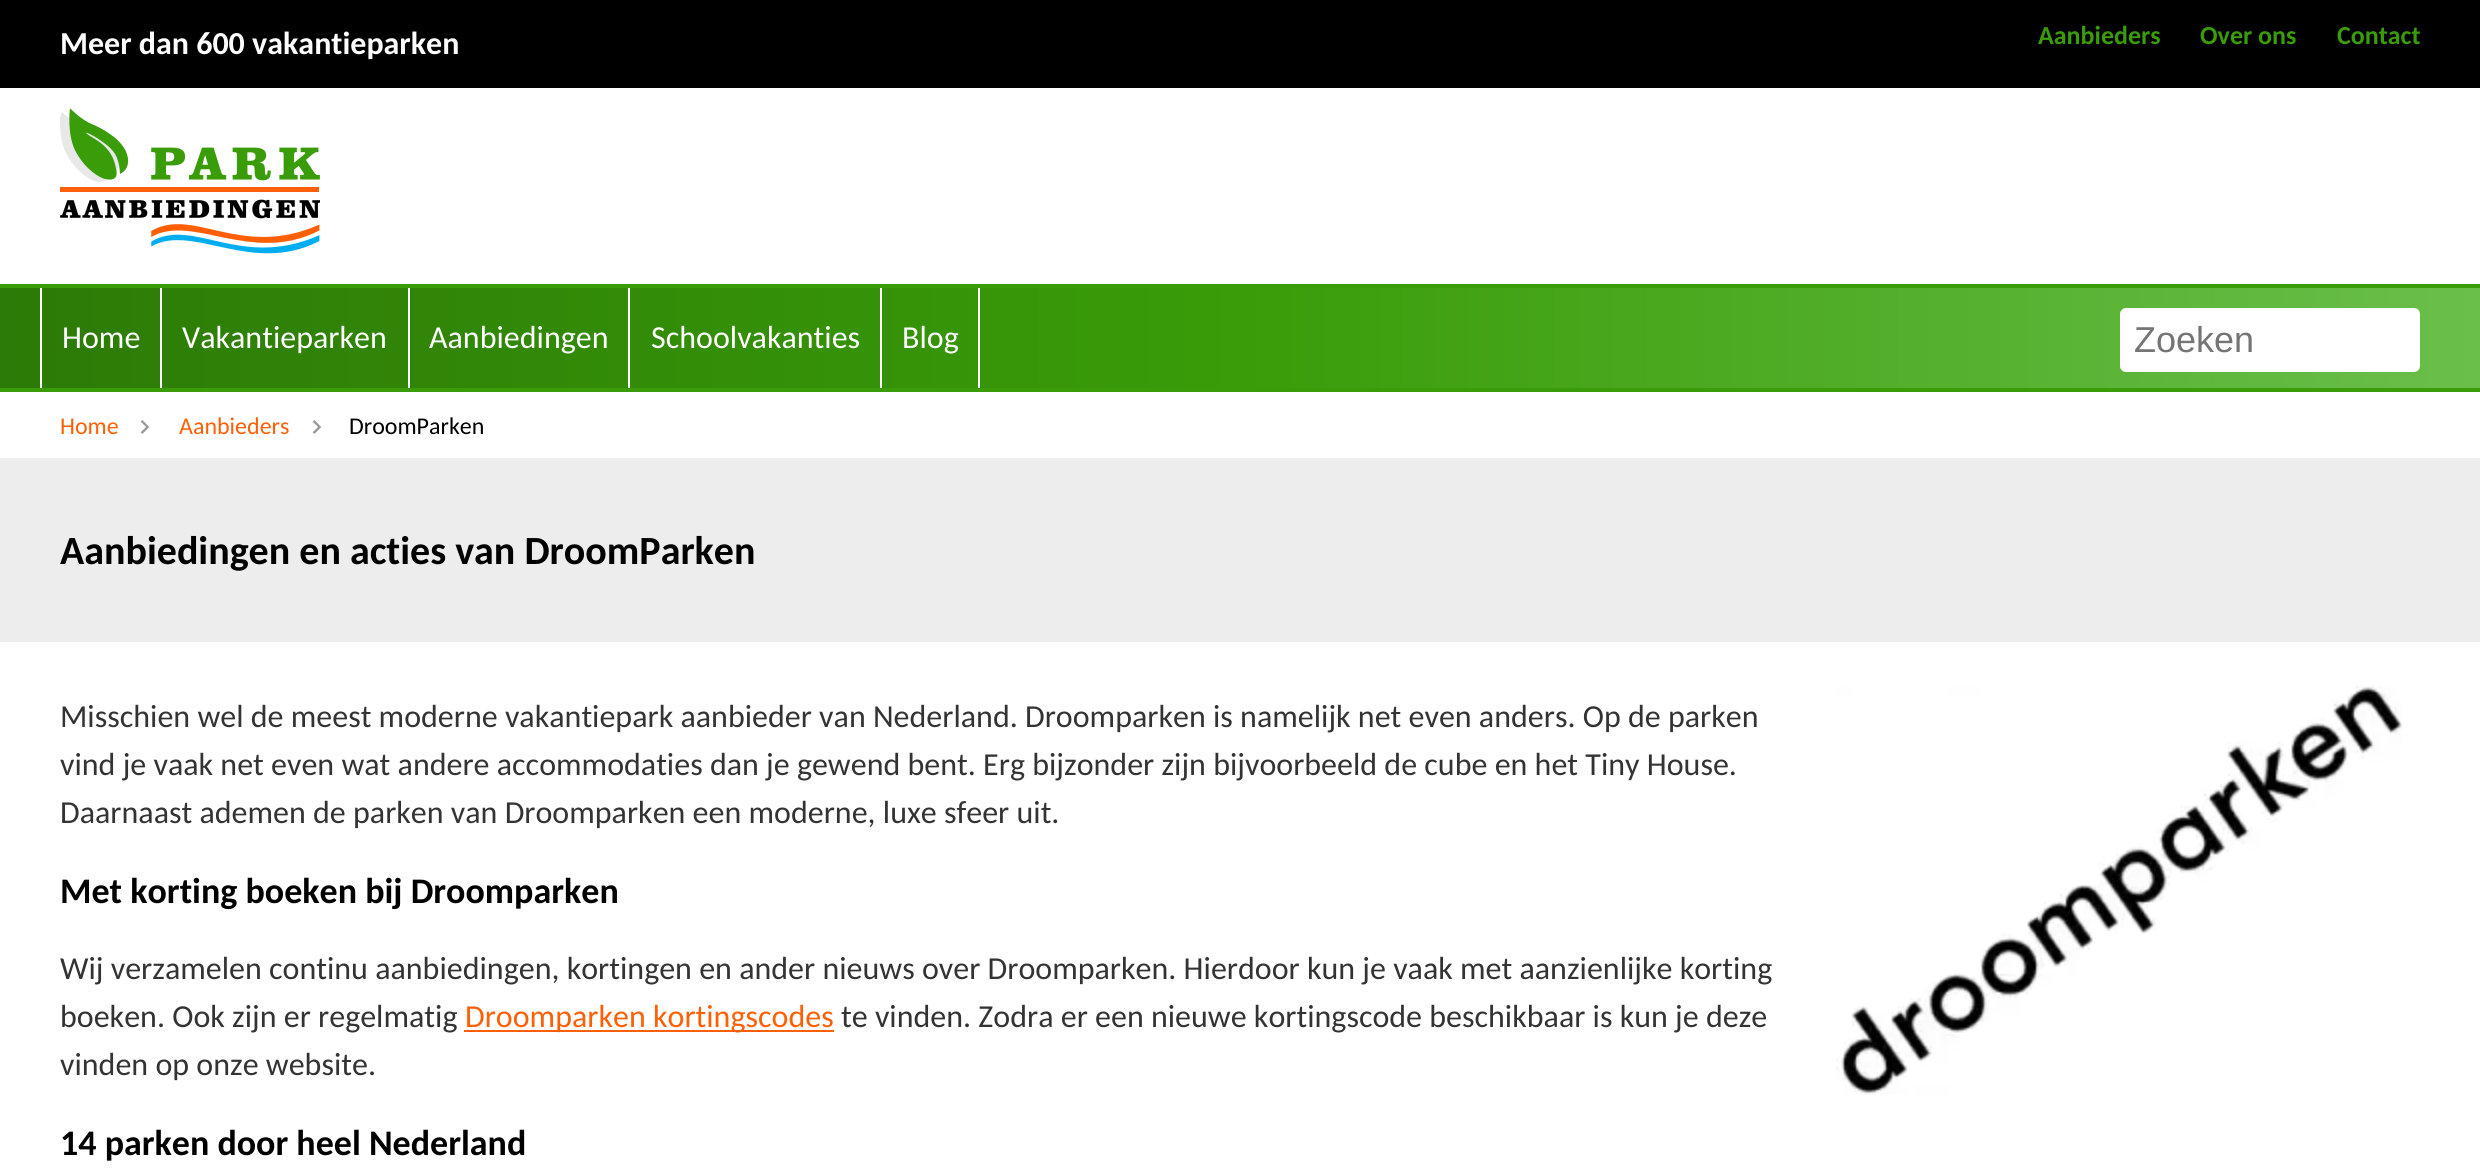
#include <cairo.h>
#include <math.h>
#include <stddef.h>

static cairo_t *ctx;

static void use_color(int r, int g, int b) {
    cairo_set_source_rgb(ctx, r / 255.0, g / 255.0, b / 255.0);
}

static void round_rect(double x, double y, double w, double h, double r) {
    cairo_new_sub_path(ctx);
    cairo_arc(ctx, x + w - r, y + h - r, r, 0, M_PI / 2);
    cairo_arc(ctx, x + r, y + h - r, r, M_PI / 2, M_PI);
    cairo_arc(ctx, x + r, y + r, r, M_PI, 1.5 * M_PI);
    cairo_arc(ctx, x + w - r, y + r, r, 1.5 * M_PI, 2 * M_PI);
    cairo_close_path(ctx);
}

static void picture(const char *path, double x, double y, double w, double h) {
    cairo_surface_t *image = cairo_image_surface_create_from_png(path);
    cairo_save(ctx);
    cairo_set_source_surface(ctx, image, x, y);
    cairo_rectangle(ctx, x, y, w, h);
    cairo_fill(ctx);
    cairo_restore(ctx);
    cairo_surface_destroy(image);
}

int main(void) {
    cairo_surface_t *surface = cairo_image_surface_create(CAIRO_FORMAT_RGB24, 2480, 1168);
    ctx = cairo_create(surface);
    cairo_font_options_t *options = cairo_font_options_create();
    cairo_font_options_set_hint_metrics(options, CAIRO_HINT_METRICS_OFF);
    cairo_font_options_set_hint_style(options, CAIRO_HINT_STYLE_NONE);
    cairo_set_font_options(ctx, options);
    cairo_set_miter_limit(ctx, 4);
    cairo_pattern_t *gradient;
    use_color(255, 255, 255);
    cairo_paint(ctx);
    use_color(0, 0, 0);
    cairo_rectangle(ctx, 0, 0, 2480, 88);
    cairo_fill(ctx);
    cairo_select_font_face(ctx, "Carlito", CAIRO_FONT_SLANT_NORMAL, CAIRO_FONT_WEIGHT_BOLD);
    cairo_set_font_size(ctx, 32);
    use_color(255, 255, 255);
    cairo_move_to(ctx, 60, 54);
    cairo_show_text(ctx, "Meer dan 600 vakantieparken");
    cairo_set_font_size(ctx, 26);
    use_color(57, 156, 8);
    cairo_move_to(ctx, 2038, 44);
    cairo_show_text(ctx, "Aanbieders");
    cairo_move_to(ctx, 2200, 44);
    cairo_show_text(ctx, "Over ons");
    cairo_move_to(ctx, 2337, 44);
    cairo_show_text(ctx, "Contact");
    picture("img1.png", 60, 108, 260, 146);
    gradient = cairo_pattern_create_linear(0, 338, 2480, 338);
    cairo_pattern_add_color_stop_rgba(gradient, 0, 0.173, 0.478, 0.027, 1);
    cairo_pattern_add_color_stop_rgba(gradient, 0.5, 0.224, 0.612, 0.031, 1);
    cairo_pattern_add_color_stop_rgba(gradient, 1, 0.416, 0.749, 0.294, 1);
    cairo_set_source(ctx, gradient);
    cairo_pattern_destroy(gradient);
    cairo_rectangle(ctx, 0, 288, 2480, 100);
    cairo_fill(ctx);
    use_color(57, 156, 8);
    cairo_rectangle(ctx, 0, 284, 2480, 4);
    cairo_fill(ctx);
    cairo_rectangle(ctx, 0, 388, 2480, 4);
    cairo_fill(ctx);
    use_color(255, 255, 255);
    cairo_rectangle(ctx, 40, 288, 2, 100);
    cairo_fill(ctx);
    cairo_select_font_face(ctx, "Carlito", CAIRO_FONT_SLANT_NORMAL, CAIRO_FONT_WEIGHT_NORMAL);
    cairo_set_font_size(ctx, 32);
    cairo_move_to(ctx, 62, 348);
    cairo_show_text(ctx, "Home");
    cairo_rectangle(ctx, 160, 288, 2, 100);
    cairo_fill(ctx);
    cairo_move_to(ctx, 182, 348);
    cairo_show_text(ctx, "Vakantieparken");
    cairo_rectangle(ctx, 408, 288, 2, 100);
    cairo_fill(ctx);
    cairo_move_to(ctx, 429, 348);
    cairo_show_text(ctx, "Aanbiedingen");
    cairo_rectangle(ctx, 628, 288, 2, 100);
    cairo_fill(ctx);
    cairo_move_to(ctx, 651, 348);
    cairo_show_text(ctx, "Schoolvakanties");
    cairo_rectangle(ctx, 978, 288, 2, 100);
    cairo_fill(ctx);
    cairo_rectangle(ctx, 880, 288, 2, 100);
    cairo_fill(ctx);
    cairo_move_to(ctx, 902, 348);
    cairo_show_text(ctx, "Blog");
    round_rect(2122, 310, 296, 60, 4);
    cairo_fill_preserve(ctx);
    cairo_set_line_width(ctx, 4);
    cairo_stroke(ctx);
    cairo_select_font_face(ctx, "Liberation Sans", CAIRO_FONT_SLANT_NORMAL, CAIRO_FONT_WEIGHT_NORMAL);
    cairo_set_font_size(ctx, 36);
    use_color(117, 117, 117);
    cairo_move_to(ctx, 2134, 352);
    cairo_show_text(ctx, "Zoeken");
    use_color(238, 238, 238);
    cairo_rectangle(ctx, 0, 458, 2480, 2);
    cairo_fill(ctx);
    cairo_select_font_face(ctx, "Carlito", CAIRO_FONT_SLANT_NORMAL, CAIRO_FONT_WEIGHT_NORMAL);
    cairo_set_font_size(ctx, 24);
    use_color(255, 96, 5);
    cairo_move_to(ctx, 60, 434);
    cairo_show_text(ctx, "Home");
    picture("img2.png", 140, 420, 10, 14);
    cairo_move_to(ctx, 179, 434);
    cairo_show_text(ctx, "Aanbieders");
    picture("img2.png", 312, 420, 10, 14);
    use_color(0, 0, 0);
    cairo_move_to(ctx, 349, 434);
    cairo_show_text(ctx, "DroomParken");
    use_color(237, 237, 237);
    cairo_rectangle(ctx, 0, 460, 2480, 182);
    cairo_fill(ctx);
    cairo_select_font_face(ctx, "Carlito", CAIRO_FONT_SLANT_NORMAL, CAIRO_FONT_WEIGHT_BOLD);
    cairo_set_font_size(ctx, 40);
    use_color(0, 0, 0);
    cairo_move_to(ctx, 60, 564);
    cairo_show_text(ctx, "Aanbiedingen en acties van DroomParken");
    cairo_select_font_face(ctx, "Carlito", CAIRO_FONT_SLANT_NORMAL, CAIRO_FONT_WEIGHT_NORMAL);
    cairo_set_font_size(ctx, 32);
    use_color(51, 51, 51);
    cairo_move_to(ctx, 60, 727);
    cairo_show_text(ctx, "Misschien wel de meest moderne vakantiepark aanbieder van Nederland. Droomparken is namelijk net even anders. Op de parken");
    cairo_move_to(ctx, 60, 775);
    cairo_show_text(ctx, "vind je vaak net even wat andere accommodaties dan je gewend bent. Erg bijzonder zijn bijvoorbeeld de cube en het Tiny House.");
    cairo_move_to(ctx, 60, 823);
    cairo_show_text(ctx, "Daarnaast ademen de parken van Droomparken een moderne, luxe sfeer uit.");
    picture("img3.png", 1836, 686, 567, 409);
    cairo_select_font_face(ctx, "Carlito", CAIRO_FONT_SLANT_NORMAL, CAIRO_FONT_WEIGHT_BOLD);
    cairo_set_font_size(ctx, 36);
    use_color(0, 0, 0);
    cairo_move_to(ctx, 60, 903);
    cairo_show_text(ctx, "Met korting boeken bij Droomparken");
    cairo_select_font_face(ctx, "Carlito", CAIRO_FONT_SLANT_NORMAL, CAIRO_FONT_WEIGHT_NORMAL);
    cairo_set_font_size(ctx, 32);
    use_color(51, 51, 51);
    cairo_move_to(ctx, 60, 979);
    cairo_show_text(ctx, "Wij verzamelen continu aanbiedingen, kortingen en ander nieuws over Droomparken. Hierdoor kun je vaak met aanzienlijke korting");
    cairo_move_to(ctx, 60, 1027);
    cairo_show_text(ctx, "boeken. Ook zijn er regelmatig");
    use_color(255, 96, 5);
    cairo_rectangle(ctx, 464, 1030, 370, 2);
    cairo_fill(ctx);
    cairo_move_to(ctx, 465, 1027);
    cairo_show_text(ctx, "Droomparken kortingscodes");
    use_color(51, 51, 51);
    cairo_move_to(ctx, 841, 1027);
    cairo_show_text(ctx, "te vinden. Zodra er een nieuwe kortingscode beschikbaar is kun je deze");
    cairo_move_to(ctx, 60, 1075);
    cairo_show_text(ctx, "vinden op onze website.");
    cairo_select_font_face(ctx, "Carlito", CAIRO_FONT_SLANT_NORMAL, CAIRO_FONT_WEIGHT_BOLD);
    cairo_set_font_size(ctx, 36);
    use_color(0, 0, 0);
    cairo_move_to(ctx, 60, 1155);
    cairo_show_text(ctx, "14 parken door heel Nederland");
    cairo_surface_write_to_png(surface, "result.png");
    cairo_font_options_destroy(options);
    cairo_destroy(ctx);
    cairo_surface_destroy(surface);
    return 0;
}
